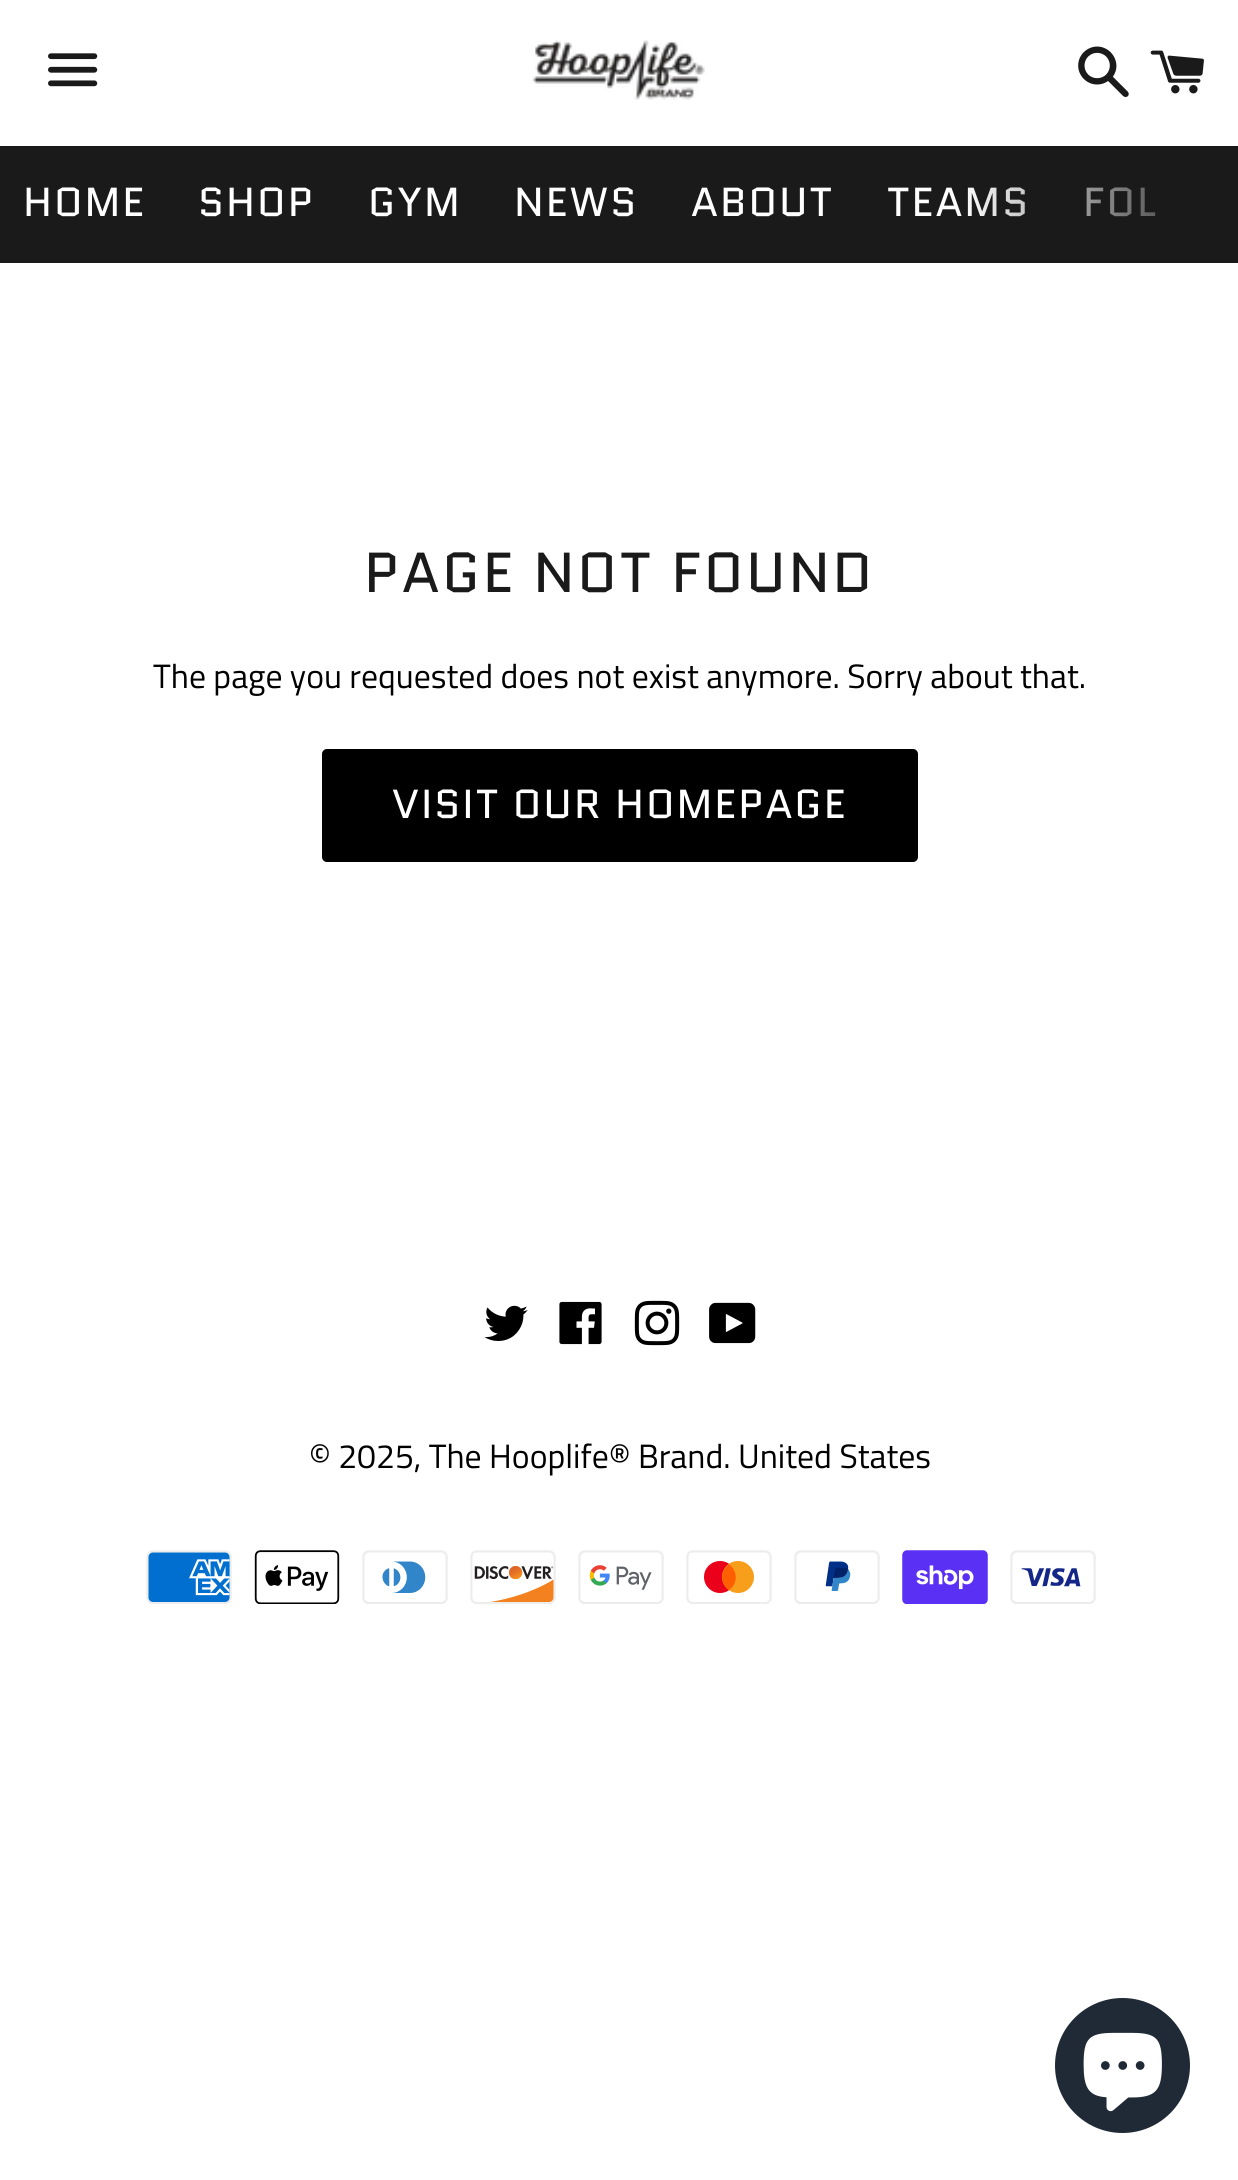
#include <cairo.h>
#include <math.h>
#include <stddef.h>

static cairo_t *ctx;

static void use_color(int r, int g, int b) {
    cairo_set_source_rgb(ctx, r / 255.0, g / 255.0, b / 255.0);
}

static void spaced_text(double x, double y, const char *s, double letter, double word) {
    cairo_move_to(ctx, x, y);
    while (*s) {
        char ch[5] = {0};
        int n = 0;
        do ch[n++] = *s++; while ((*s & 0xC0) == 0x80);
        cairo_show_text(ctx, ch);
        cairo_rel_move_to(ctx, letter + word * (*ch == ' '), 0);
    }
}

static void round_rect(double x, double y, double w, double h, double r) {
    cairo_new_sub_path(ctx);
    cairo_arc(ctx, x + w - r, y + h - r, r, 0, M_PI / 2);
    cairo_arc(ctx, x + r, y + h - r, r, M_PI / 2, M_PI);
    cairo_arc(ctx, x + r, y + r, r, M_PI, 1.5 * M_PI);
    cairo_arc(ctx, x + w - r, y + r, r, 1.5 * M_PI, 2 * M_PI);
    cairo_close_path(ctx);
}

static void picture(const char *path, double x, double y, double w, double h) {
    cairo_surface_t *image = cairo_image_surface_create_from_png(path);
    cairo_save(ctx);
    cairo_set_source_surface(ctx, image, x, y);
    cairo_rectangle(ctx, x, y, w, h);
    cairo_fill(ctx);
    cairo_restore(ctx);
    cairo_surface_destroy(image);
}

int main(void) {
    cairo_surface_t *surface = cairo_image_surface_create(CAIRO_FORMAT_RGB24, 1238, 2180);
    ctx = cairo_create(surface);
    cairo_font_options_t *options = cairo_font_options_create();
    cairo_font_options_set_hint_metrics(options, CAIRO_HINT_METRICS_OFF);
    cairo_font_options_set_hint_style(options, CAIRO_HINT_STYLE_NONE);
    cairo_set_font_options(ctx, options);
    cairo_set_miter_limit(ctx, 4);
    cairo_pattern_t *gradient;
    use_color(255, 255, 255);
    cairo_paint(ctx);
    picture("img1.png", 48, 53, 50, 34);
    picture("img2.png", 532, 40, 173, 60);
    picture("img3.png", 1078, 46, 51, 51);
    picture("img4.png", 1150, 50, 54, 44);
    use_color(26, 26, 26);
    cairo_rectangle(ctx, 0, 146, 1238, 117);
    cairo_fill(ctx);
    cairo_select_font_face(ctx, "Quantico", CAIRO_FONT_SLANT_NORMAL, CAIRO_FONT_WEIGHT_NORMAL);
    cairo_set_font_size(ctx, 40.5);
    use_color(255, 255, 255);
    spaced_text(23, 216, "HOME", 2, 0);
    spaced_text(198, 216, "SHOP", 2, 0);
    spaced_text(368, 216, "GYM", 2, 0);
    spaced_text(514, 216, "NEWS", 2, 0);
    spaced_text(691, 216, "ABOUT", 2, 0);
    spaced_text(887, 216, "TEAMS", 2, 0);
    spaced_text(1083, 216, "FOL", 2, 0);
    gradient = cairo_pattern_create_linear(959, 205, 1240, 205);
    cairo_pattern_add_color_stop_rgba(gradient, 0, 0.102, 0.102, 0.102, 0);
    cairo_pattern_add_color_stop_rgba(gradient, 1, 0.102, 0.102, 0.102, 1);
    cairo_set_source(ctx, gradient);
    cairo_pattern_destroy(gradient);
    cairo_rectangle(ctx, 968, 187, 188, 30);
    cairo_fill(ctx);
    cairo_set_font_size(ctx, 56.25);
    use_color(26, 26, 26);
    spaced_text(364, 592, "PAGE NOT FOUND", 2.75, 0);
    cairo_select_font_face(ctx, "Titillium Web", CAIRO_FONT_SLANT_NORMAL, CAIRO_FONT_WEIGHT_NORMAL);
    cairo_set_font_size(ctx, 33.75);
    use_color(0, 0, 0);
    cairo_move_to(ctx, 153, 688);
    cairo_show_text(ctx, "The page you requested does not exist anymore. Sorry about that.");
    round_rect(322, 749, 596, 113, 5);
    cairo_fill(ctx);
    cairo_select_font_face(ctx, "Quantico", CAIRO_FONT_SLANT_NORMAL, CAIRO_FONT_WEIGHT_NORMAL);
    cairo_set_font_size(ctx, 40.5);
    use_color(255, 255, 255);
    spaced_text(392, 818, "VISIT OUR HOMEPAGE", 2, 0);
    picture("img5.png", 484, 1305, 44, 36);
    picture("img6.png", 559, 1301, 43, 44);
    picture("img7.png", 634, 1300, 46, 46);
    picture("img8.png", 709, 1302, 47, 42);
    cairo_select_font_face(ctx, "Titillium Web", CAIRO_FONT_SLANT_NORMAL, CAIRO_FONT_WEIGHT_NORMAL);
    cairo_set_font_size(ctx, 33.75);
    use_color(0, 0, 0);
    cairo_move_to(ctx, 309, 1468);
    cairo_show_text(ctx, "© 2025, The Hooplife® Brand. United States");
    picture("img9.png", 146, 1550, 86, 54);
    picture("img10.png", 254, 1550, 86, 54);
    picture("img11.png", 362, 1550, 86, 54);
    picture("img12.png", 470, 1550, 86, 54);
    picture("img13.png", 578, 1550, 86, 54);
    picture("img14.png", 686, 1550, 86, 54);
    picture("img15.png", 794, 1550, 86, 54);
    picture("img16.png", 902, 1550, 86, 54);
    picture("img17.png", 1010, 1550, 86, 54);
    use_color(32, 42, 54);
    cairo_arc(ctx, 1122.5, 2065.5, 67.5, 0, 2 * M_PI);
    cairo_fill(ctx);
    picture("img18.png", 1083, 2032, 79, 80);
    cairo_surface_write_to_png(surface, "result.png");
    cairo_font_options_destroy(options);
    cairo_destroy(ctx);
    cairo_surface_destroy(surface);
    return 0;
}
